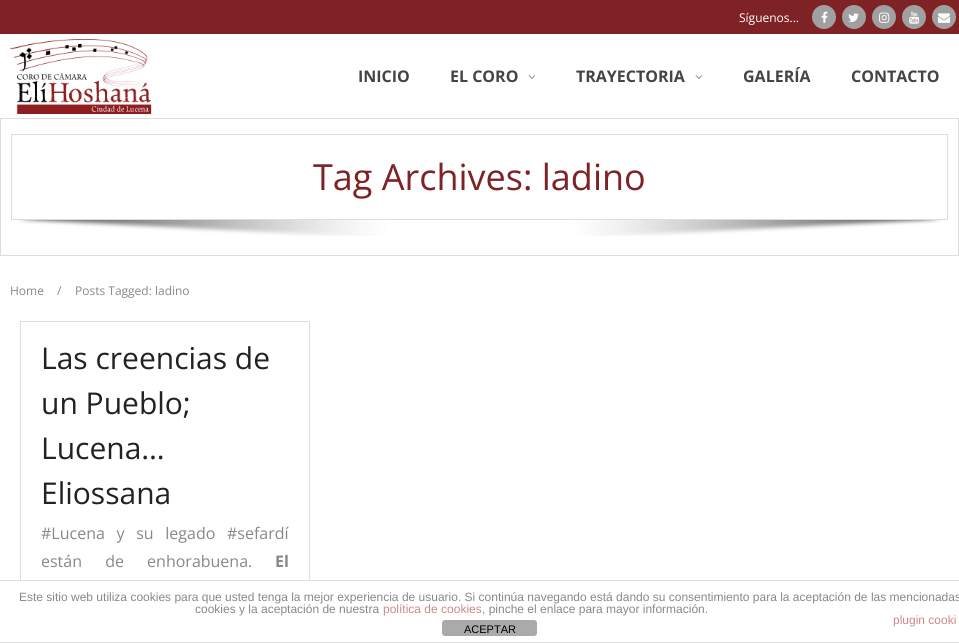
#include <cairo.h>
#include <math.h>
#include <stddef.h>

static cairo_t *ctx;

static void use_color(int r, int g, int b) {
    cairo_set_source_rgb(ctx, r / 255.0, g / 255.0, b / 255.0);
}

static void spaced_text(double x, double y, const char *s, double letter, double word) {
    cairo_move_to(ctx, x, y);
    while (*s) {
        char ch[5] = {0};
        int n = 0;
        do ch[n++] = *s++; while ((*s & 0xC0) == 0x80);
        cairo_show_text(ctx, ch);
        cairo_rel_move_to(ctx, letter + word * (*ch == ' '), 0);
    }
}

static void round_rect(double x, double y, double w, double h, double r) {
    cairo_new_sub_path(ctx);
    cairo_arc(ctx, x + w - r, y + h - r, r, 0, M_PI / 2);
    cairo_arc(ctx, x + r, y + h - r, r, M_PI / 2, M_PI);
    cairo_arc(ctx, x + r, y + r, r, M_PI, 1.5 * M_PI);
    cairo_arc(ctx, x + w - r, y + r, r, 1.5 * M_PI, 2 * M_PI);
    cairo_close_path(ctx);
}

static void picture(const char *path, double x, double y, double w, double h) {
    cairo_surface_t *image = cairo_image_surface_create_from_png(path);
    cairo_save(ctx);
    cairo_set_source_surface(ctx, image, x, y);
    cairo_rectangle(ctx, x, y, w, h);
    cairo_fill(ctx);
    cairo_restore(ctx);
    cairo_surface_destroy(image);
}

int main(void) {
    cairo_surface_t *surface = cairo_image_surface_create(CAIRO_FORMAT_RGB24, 959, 643);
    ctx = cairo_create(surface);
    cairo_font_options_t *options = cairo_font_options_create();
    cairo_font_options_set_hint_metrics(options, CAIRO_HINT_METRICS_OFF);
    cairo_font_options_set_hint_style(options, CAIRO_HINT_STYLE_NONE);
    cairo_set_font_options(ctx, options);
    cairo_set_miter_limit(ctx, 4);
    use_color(255, 255, 255);
    cairo_paint(ctx);
    use_color(221, 221, 221);
    cairo_rectangle(ctx, 0, 118, 959, 1);
    cairo_fill(ctx);
    use_color(126, 34, 37);
    cairo_rectangle(ctx, 0, 0, 959, 34);
    cairo_fill(ctx);
    cairo_select_font_face(ctx, "Open Sans", CAIRO_FONT_SLANT_NORMAL, CAIRO_FONT_WEIGHT_NORMAL);
    cairo_set_font_size(ctx, 12);
    use_color(255, 255, 255);
    cairo_move_to(ctx, 739, 22);
    cairo_show_text(ctx, "Síguenos...");
    use_color(160, 160, 160);
    cairo_new_path(ctx);
    cairo_arc(ctx, 824, 17, 12, 0, 2 * M_PI);
    cairo_fill(ctx);
    picture("img1.png", 821, 11, 7, 12);
    cairo_arc(ctx, 854, 17, 12, 0, 2 * M_PI);
    cairo_fill(ctx);
    picture("img2.png", 848, 13, 11, 9);
    cairo_arc(ctx, 884, 17, 12, 0, 2 * M_PI);
    cairo_fill(ctx);
    picture("img3.png", 879, 12, 11, 11);
    cairo_arc(ctx, 914, 17, 12, 0, 2 * M_PI);
    cairo_fill(ctx);
    picture("img4.png", 909, 11, 11, 13);
    cairo_arc(ctx, 944, 17, 12, 0, 2 * M_PI);
    cairo_fill(ctx);
    picture("img5.png", 938, 13, 12, 10);
    picture("img6.png", 10, 39, 142, 75);
    cairo_select_font_face(ctx, "Open Sans", CAIRO_FONT_SLANT_NORMAL, CAIRO_FONT_WEIGHT_BOLD);
    cairo_set_font_size(ctx, 16);
    use_color(68, 68, 68);
    cairo_move_to(ctx, 358, 82);
    cairo_show_text(ctx, "INICIO");
    cairo_move_to(ctx, 450, 82);
    cairo_show_text(ctx, "EL CORO");
    picture("img7.png", 528, 75, 8, 4);
    cairo_move_to(ctx, 576, 82);
    cairo_show_text(ctx, "TRAYECTORIA");
    picture("img7.png", 695, 75, 8, 4);
    cairo_move_to(ctx, 743, 82);
    cairo_show_text(ctx, "GALERÍA");
    cairo_move_to(ctx, 851, 82);
    cairo_show_text(ctx, "CONTACTO");
    use_color(221, 221, 221);
    cairo_rectangle(ctx, 958, 119, 1, 137);
    cairo_fill(ctx);
    cairo_rectangle(ctx, 0, 255, 959, 1);
    cairo_fill(ctx);
    cairo_rectangle(ctx, 0, 119, 1, 137);
    cairo_fill(ctx);
    cairo_rectangle(ctx, 11.5, 134.5, 936, 85);
    cairo_set_line_width(ctx, 1);
    cairo_stroke(ctx);
    cairo_select_font_face(ctx, "Open Sans", CAIRO_FONT_SLANT_NORMAL, CAIRO_FONT_WEIGHT_NORMAL);
    cairo_set_font_size(ctx, 36);
    use_color(126, 34, 37);
    cairo_move_to(ctx, 313, 190);
    cairo_show_text(ctx, "Tag Archives: ladino");
    picture("img8.png", 17, 220, 925, 16);
    cairo_set_font_size(ctx, 12);
    use_color(136, 136, 136);
    cairo_move_to(ctx, 10, 295);
    cairo_show_text(ctx, "Home");
    cairo_move_to(ctx, 57, 295);
    cairo_show_text(ctx, "/");
    cairo_move_to(ctx, 75, 295);
    cairo_show_text(ctx, "Posts Tagged: ladino");
    cairo_rectangle(ctx, 20.5, 321.5, 289, 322);
    use_color(221, 221, 221);
    cairo_stroke(ctx);
    cairo_set_font_size(ctx, 30);
    use_color(34, 34, 34);
    cairo_move_to(ctx, 41, 369);
    cairo_show_text(ctx, "Las creencias de");
    cairo_move_to(ctx, 41, 414);
    cairo_show_text(ctx, "un Pueblo;");
    cairo_move_to(ctx, 41, 459);
    cairo_show_text(ctx, "Lucena…");
    cairo_move_to(ctx, 41, 504);
    cairo_show_text(ctx, "Eliossana");
    cairo_set_font_size(ctx, 16);
    use_color(136, 136, 136);
    spaced_text(41, 539, "#Lucena y su legado #sefardí", 0, 7.5);
    spaced_text(41, 567, "están de enhorabuena.", 0, 19);
    cairo_select_font_face(ctx, "Open Sans", CAIRO_FONT_SLANT_NORMAL, CAIRO_FONT_WEIGHT_BOLD);
    cairo_move_to(ctx, 275, 567);
    cairo_show_text(ctx, "El");
    use_color(255, 255, 255);
    cairo_rectangle(ctx, 20, 581, 290, 61);
    cairo_fill(ctx);
    use_color(221, 221, 221);
    cairo_rectangle(ctx, 0, 580, 959, 1);
    cairo_fill(ctx);
    cairo_rectangle(ctx, 0, 642, 959, 1);
    cairo_fill(ctx);
    cairo_select_font_face(ctx, "Liberation Sans", CAIRO_FONT_SLANT_NORMAL, CAIRO_FONT_WEIGHT_NORMAL);
    cairo_set_font_size(ctx, 12);
    use_color(136, 136, 136);
    cairo_move_to(ctx, 19, 601);
    cairo_show_text(ctx, "Este sitio web utiliza cookies para que usted tenga la mejor experiencia de usuario. Si continúa navegando está dando su consentimiento para la aceptación de las mencionadas");
    cairo_move_to(ctx, 195, 613);
    cairo_show_text(ctx, "cookies y la aceptación de nuestra");
    use_color(204, 136, 136);
    cairo_move_to(ctx, 383, 613);
    cairo_show_text(ctx, "política de cookies");
    use_color(136, 136, 136);
    cairo_move_to(ctx, 482, 613);
    cairo_show_text(ctx, ", pinche el enlace para mayor información.");
    use_color(204, 136, 136);
    cairo_move_to(ctx, 893, 624);
    cairo_show_text(ctx, "plugin cooki");
    use_color(170, 170, 170);
    round_rect(442, 620, 95, 16, 3);
    cairo_fill(ctx);
    cairo_set_font_size(ctx, 11);
    use_color(0, 0, 0);
    cairo_move_to(ctx, 464, 633);
    cairo_show_text(ctx, "ACEPTAR");
    cairo_surface_write_to_png(surface, "result.png");
    cairo_font_options_destroy(options);
    cairo_destroy(ctx);
    cairo_surface_destroy(surface);
    return 0;
}
